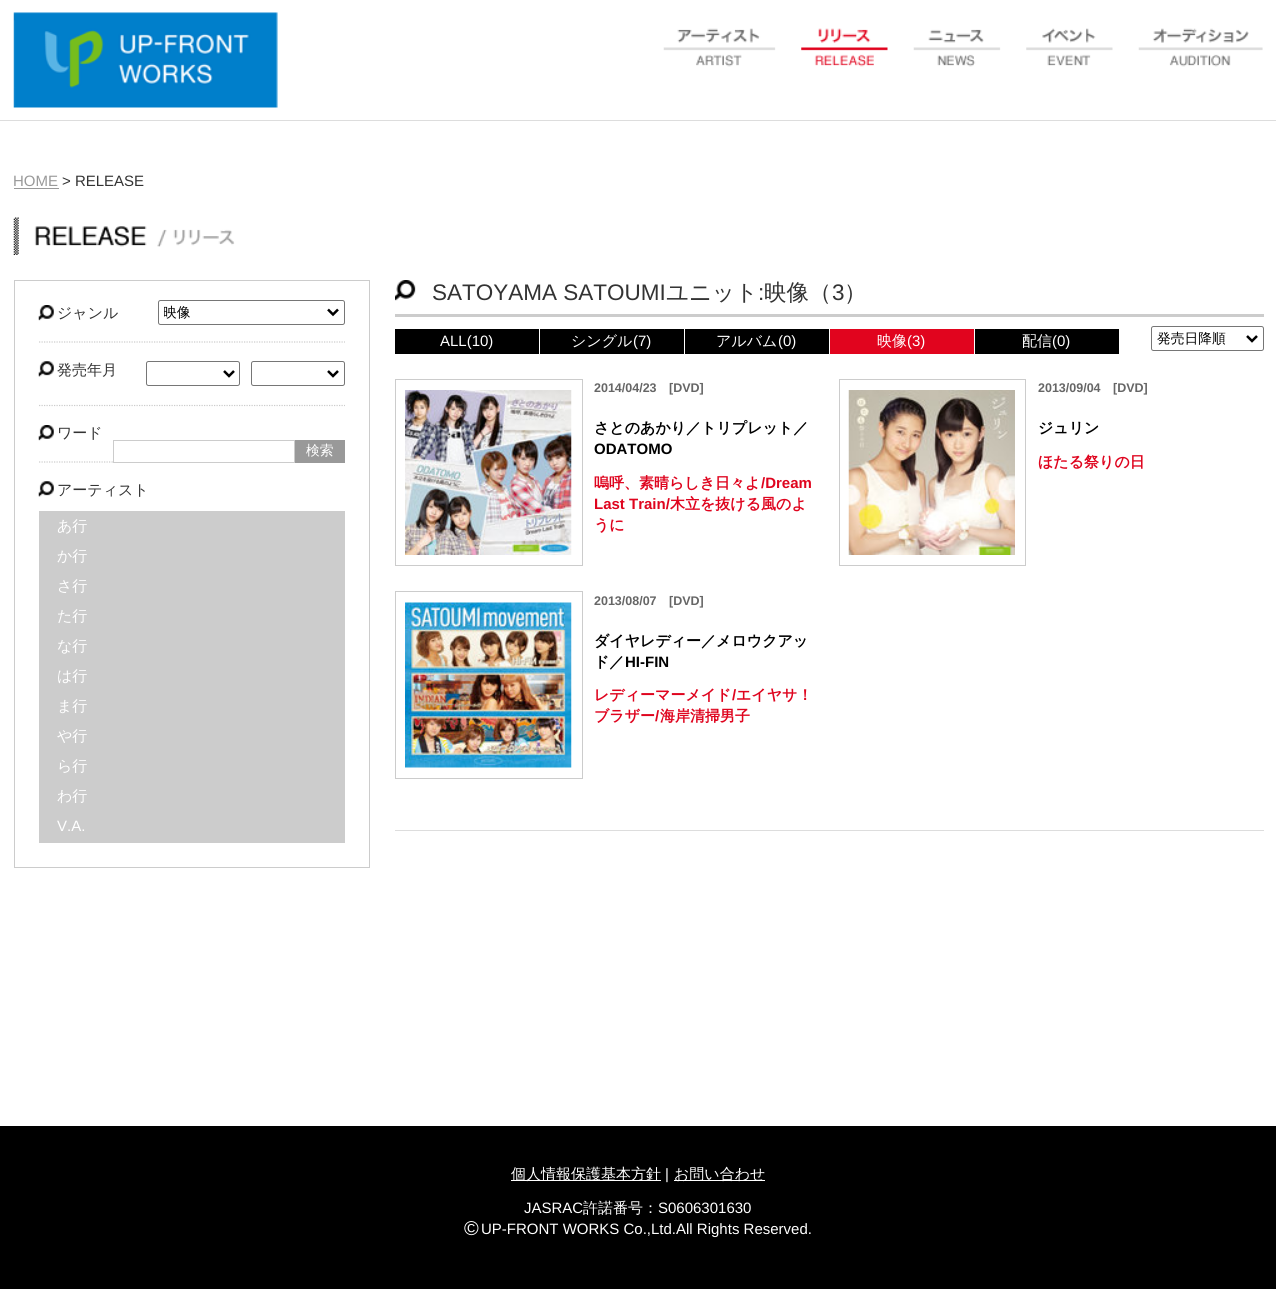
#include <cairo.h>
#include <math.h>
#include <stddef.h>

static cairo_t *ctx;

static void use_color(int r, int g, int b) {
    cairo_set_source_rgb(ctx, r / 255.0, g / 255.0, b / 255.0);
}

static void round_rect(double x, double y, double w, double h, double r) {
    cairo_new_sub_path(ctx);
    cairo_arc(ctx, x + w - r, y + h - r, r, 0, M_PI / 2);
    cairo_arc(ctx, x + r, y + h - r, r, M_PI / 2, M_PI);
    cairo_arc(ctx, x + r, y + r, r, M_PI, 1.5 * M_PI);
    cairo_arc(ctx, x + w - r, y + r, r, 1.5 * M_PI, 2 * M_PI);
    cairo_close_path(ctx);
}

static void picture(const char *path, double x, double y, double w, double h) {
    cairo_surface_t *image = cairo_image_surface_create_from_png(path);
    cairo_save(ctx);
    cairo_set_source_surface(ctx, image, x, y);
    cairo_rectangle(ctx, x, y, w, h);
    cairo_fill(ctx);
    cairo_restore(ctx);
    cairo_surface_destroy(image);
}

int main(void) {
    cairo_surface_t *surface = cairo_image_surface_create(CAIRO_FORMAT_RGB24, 1276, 1289);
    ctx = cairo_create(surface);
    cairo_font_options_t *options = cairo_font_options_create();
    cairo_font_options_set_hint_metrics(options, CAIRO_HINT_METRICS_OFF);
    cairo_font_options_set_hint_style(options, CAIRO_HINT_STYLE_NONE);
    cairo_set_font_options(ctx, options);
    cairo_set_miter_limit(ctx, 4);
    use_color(255, 255, 255);
    cairo_paint(ctx);
    picture("img1.png", 13, 12, 265, 96);
    picture("img2.png", 663, 28, 113, 39);
    picture("img3.png", 801, 28, 87, 39);
    picture("img4.png", 913, 29, 88, 38);
    picture("img5.png", 1026, 28, 87, 38);
    picture("img6.png", 1138, 28, 125, 39);
    use_color(221, 221, 221);
    cairo_rectangle(ctx, 0, 120, 1276, 1);
    cairo_fill(ctx);
    cairo_select_font_face(ctx, "Liberation Sans", CAIRO_FONT_SLANT_NORMAL, CAIRO_FONT_WEIGHT_NORMAL);
    cairo_set_font_size(ctx, 15);
    use_color(153, 153, 153);
    cairo_move_to(ctx, 13, 186);
    cairo_show_text(ctx, "HOME");
    cairo_rectangle(ctx, 14, 188, 45, 1);
    cairo_fill(ctx);
    use_color(51, 51, 51);
    cairo_move_to(ctx, 62, 186);
    cairo_show_text(ctx, "> RELEASE");
    picture("img7.png", 13, 217, 222, 38);
    cairo_rectangle(ctx, 14.5, 280.5, 355, 587);
    use_color(204, 204, 204);
    cairo_set_line_width(ctx, 1);
    cairo_stroke(ctx);
    picture("img8.png", 38, 305, 16, 16);
    cairo_select_font_face(ctx, "WenQuanYi Zen Hei Medium", CAIRO_FONT_SLANT_NORMAL, CAIRO_FONT_WEIGHT_NORMAL);
    use_color(51, 51, 51);
    cairo_move_to(ctx, 57, 318);
    cairo_show_text(ctx, "ジャンル");
    round_rect(158.5, 300.5, 186, 24, 2);
    use_color(118, 118, 118);
    cairo_stroke(ctx);
    cairo_new_path(ctx);
    cairo_move_to(ctx, 328, 309.5);
    cairo_line_to(ctx, 333, 314.5);
    cairo_line_to(ctx, 338, 309.5);
    use_color(0, 0, 0);
    cairo_set_line_width(ctx, 2.5);
    cairo_stroke(ctx);
    cairo_save(ctx);
    cairo_rectangle(ctx, 164, 304, 160, 17);
    cairo_clip(ctx);
    cairo_set_font_size(ctx, 13.75);
    cairo_move_to(ctx, 163, 317);
    cairo_show_text(ctx, "映像");
    cairo_restore(ctx);
    cairo_new_path(ctx);
    cairo_move_to(ctx, 39, 342);
    cairo_line_to(ctx, 345, 342);
    use_color(204, 204, 204);
    cairo_set_line_width(ctx, 1.2);
    cairo_set_dash(ctx, (double[]){1.25, 1.25}, 2, 0);
    cairo_stroke(ctx);
    picture("img9.png", 38, 361, 16, 16);
    use_color(51, 51, 51);
    cairo_move_to(ctx, 57, 375);
    cairo_show_text(ctx, "発売年月");
    round_rect(146.5, 361.5, 93, 24, 2);
    use_color(118, 118, 118);
    cairo_set_line_width(ctx, 1);
    cairo_set_dash(ctx, NULL, 0, 0);
    cairo_stroke(ctx);
    cairo_new_path(ctx);
    cairo_move_to(ctx, 224, 371);
    cairo_line_to(ctx, 229, 376);
    cairo_line_to(ctx, 234, 371);
    use_color(0, 0, 0);
    cairo_set_line_width(ctx, 2.5);
    cairo_stroke(ctx);
    round_rect(251.5, 361.5, 93, 24, 2);
    use_color(118, 118, 118);
    cairo_set_line_width(ctx, 1);
    cairo_stroke(ctx);
    cairo_new_path(ctx);
    cairo_move_to(ctx, 328, 371);
    cairo_line_to(ctx, 333, 376);
    cairo_line_to(ctx, 338, 371);
    use_color(0, 0, 0);
    cairo_set_line_width(ctx, 2.5);
    cairo_stroke(ctx);
    cairo_new_path(ctx);
    cairo_move_to(ctx, 39, 405.5);
    cairo_line_to(ctx, 345, 405.5);
    use_color(204, 204, 204);
    cairo_set_line_width(ctx, 1.2);
    cairo_set_dash(ctx, (double[]){1.25, 1.25}, 2, 0);
    cairo_stroke(ctx);
    picture("img8.png", 38, 425, 16, 16);
    use_color(51, 51, 51);
    cairo_move_to(ctx, 57, 438);
    cairo_show_text(ctx, "ワード");
    cairo_new_path(ctx);
    cairo_move_to(ctx, 39, 462);
    cairo_line_to(ctx, 345, 462);
    use_color(204, 204, 204);
    cairo_stroke(ctx);
    use_color(255, 255, 255);
    cairo_rectangle(ctx, 114, 461, 179, 1);
    cairo_fill(ctx);
    cairo_rectangle(ctx, 113.5, 440.5, 181, 22);
    use_color(204, 204, 204);
    cairo_set_line_width(ctx, 1);
    cairo_set_dash(ctx, NULL, 0, 0);
    cairo_stroke(ctx);
    use_color(153, 153, 153);
    cairo_rectangle(ctx, 295, 440, 50, 23);
    cairo_fill(ctx);
    cairo_set_font_size(ctx, 13.75);
    use_color(255, 255, 255);
    cairo_move_to(ctx, 306, 455);
    cairo_show_text(ctx, "検索");
    picture("img9.png", 38, 481, 16, 16);
    cairo_set_font_size(ctx, 15);
    use_color(51, 51, 51);
    cairo_move_to(ctx, 57, 495);
    cairo_show_text(ctx, "アーティスト");
    use_color(204, 204, 204);
    cairo_rectangle(ctx, 39, 511, 306, 332);
    cairo_fill(ctx);
    use_color(255, 255, 255);
    cairo_move_to(ctx, 57, 531);
    cairo_show_text(ctx, "あ行");
    cairo_move_to(ctx, 57, 561);
    cairo_show_text(ctx, "か行");
    cairo_move_to(ctx, 57, 591);
    cairo_show_text(ctx, "さ行");
    cairo_move_to(ctx, 57, 621);
    cairo_show_text(ctx, "た行");
    cairo_move_to(ctx, 57, 651);
    cairo_show_text(ctx, "な行");
    cairo_move_to(ctx, 57, 681);
    cairo_show_text(ctx, "は行");
    cairo_move_to(ctx, 57, 711);
    cairo_show_text(ctx, "ま行");
    cairo_move_to(ctx, 57, 741);
    cairo_show_text(ctx, "や行");
    cairo_move_to(ctx, 57, 771);
    cairo_show_text(ctx, "ら行");
    cairo_move_to(ctx, 57, 801);
    cairo_show_text(ctx, "わ行");
    cairo_select_font_face(ctx, "Liberation Sans", CAIRO_FONT_SLANT_NORMAL, CAIRO_FONT_WEIGHT_NORMAL);
    cairo_move_to(ctx, 57, 831);
    cairo_show_text(ctx, "V.A.");
    picture("img10.png", 395, 280, 21, 21);
    cairo_set_font_size(ctx, 22.5);
    use_color(51, 51, 51);
    cairo_move_to(ctx, 432, 300);
    cairo_show_text(ctx, "SATOYAMA SATOUMI");
    cairo_select_font_face(ctx, "WenQuanYi Zen Hei Medium", CAIRO_FONT_SLANT_NORMAL, CAIRO_FONT_WEIGHT_NORMAL);
    cairo_move_to(ctx, 666, 300);
    cairo_show_text(ctx, "ユニット");
    cairo_select_font_face(ctx, "Liberation Sans", CAIRO_FONT_SLANT_NORMAL, CAIRO_FONT_WEIGHT_NORMAL);
    cairo_move_to(ctx, 758, 300);
    cairo_show_text(ctx, ":");
    cairo_select_font_face(ctx, "WenQuanYi Zen Hei Medium", CAIRO_FONT_SLANT_NORMAL, CAIRO_FONT_WEIGHT_NORMAL);
    cairo_move_to(ctx, 764, 300);
    cairo_show_text(ctx, "映像（");
    cairo_select_font_face(ctx, "Liberation Sans", CAIRO_FONT_SLANT_NORMAL, CAIRO_FONT_WEIGHT_NORMAL);
    cairo_move_to(ctx, 832, 300);
    cairo_show_text(ctx, "3");
    cairo_select_font_face(ctx, "WenQuanYi Zen Hei Medium", CAIRO_FONT_SLANT_NORMAL, CAIRO_FONT_WEIGHT_NORMAL);
    cairo_move_to(ctx, 844, 300);
    cairo_show_text(ctx, "）");
    use_color(204, 204, 204);
    cairo_rectangle(ctx, 395, 314, 869, 3);
    cairo_fill(ctx);
    use_color(0, 0, 0);
    cairo_rectangle(ctx, 395, 329, 144, 25);
    cairo_fill(ctx);
    cairo_select_font_face(ctx, "Liberation Sans", CAIRO_FONT_SLANT_NORMAL, CAIRO_FONT_WEIGHT_NORMAL);
    cairo_set_font_size(ctx, 15);
    use_color(255, 255, 255);
    cairo_move_to(ctx, 440, 346);
    cairo_show_text(ctx, "ALL(10)");
    use_color(0, 0, 0);
    cairo_rectangle(ctx, 540, 329, 144, 25);
    cairo_fill(ctx);
    cairo_select_font_face(ctx, "WenQuanYi Zen Hei Medium", CAIRO_FONT_SLANT_NORMAL, CAIRO_FONT_WEIGHT_NORMAL);
    use_color(255, 255, 255);
    cairo_move_to(ctx, 571, 346);
    cairo_show_text(ctx, "シングル");
    cairo_select_font_face(ctx, "Liberation Sans", CAIRO_FONT_SLANT_NORMAL, CAIRO_FONT_WEIGHT_NORMAL);
    cairo_move_to(ctx, 633, 346);
    cairo_show_text(ctx, "(7)");
    use_color(0, 0, 0);
    cairo_rectangle(ctx, 685, 329, 144, 25);
    cairo_fill(ctx);
    cairo_select_font_face(ctx, "WenQuanYi Zen Hei Medium", CAIRO_FONT_SLANT_NORMAL, CAIRO_FONT_WEIGHT_NORMAL);
    use_color(255, 255, 255);
    cairo_move_to(ctx, 716, 346);
    cairo_show_text(ctx, "アルバム");
    cairo_select_font_face(ctx, "Liberation Sans", CAIRO_FONT_SLANT_NORMAL, CAIRO_FONT_WEIGHT_NORMAL);
    cairo_move_to(ctx, 778, 346);
    cairo_show_text(ctx, "(0)");
    use_color(225, 4, 30);
    cairo_rectangle(ctx, 830, 329, 144, 25);
    cairo_fill(ctx);
    cairo_select_font_face(ctx, "WenQuanYi Zen Hei Medium", CAIRO_FONT_SLANT_NORMAL, CAIRO_FONT_WEIGHT_NORMAL);
    use_color(255, 255, 255);
    cairo_move_to(ctx, 877, 346);
    cairo_show_text(ctx, "映像");
    cairo_select_font_face(ctx, "Liberation Sans", CAIRO_FONT_SLANT_NORMAL, CAIRO_FONT_WEIGHT_NORMAL);
    cairo_move_to(ctx, 907, 346);
    cairo_show_text(ctx, "(3)");
    use_color(0, 0, 0);
    cairo_rectangle(ctx, 975, 329, 144, 25);
    cairo_fill(ctx);
    cairo_select_font_face(ctx, "WenQuanYi Zen Hei Medium", CAIRO_FONT_SLANT_NORMAL, CAIRO_FONT_WEIGHT_NORMAL);
    use_color(255, 255, 255);
    cairo_move_to(ctx, 1022, 346);
    cairo_show_text(ctx, "配信");
    cairo_select_font_face(ctx, "Liberation Sans", CAIRO_FONT_SLANT_NORMAL, CAIRO_FONT_WEIGHT_NORMAL);
    cairo_move_to(ctx, 1052, 346);
    cairo_show_text(ctx, "(0)");
    round_rect(1151.5, 326.5, 112, 24, 2);
    use_color(118, 118, 118);
    cairo_stroke(ctx);
    cairo_new_path(ctx);
    cairo_move_to(ctx, 1247, 336);
    cairo_line_to(ctx, 1252, 341);
    cairo_line_to(ctx, 1257, 336);
    use_color(0, 0, 0);
    cairo_set_line_width(ctx, 2.5);
    cairo_stroke(ctx);
    cairo_select_font_face(ctx, "WenQuanYi Zen Hei Medium", CAIRO_FONT_SLANT_NORMAL, CAIRO_FONT_WEIGHT_NORMAL);
    cairo_set_font_size(ctx, 13.75);
    cairo_move_to(ctx, 1157, 343);
    cairo_show_text(ctx, "発売日降順");
    cairo_rectangle(ctx, 395.5, 379.5, 187, 186);
    use_color(204, 204, 204);
    cairo_set_line_width(ctx, 1);
    cairo_stroke(ctx);
    picture("img11.png", 405, 390, 167, 165);
    cairo_select_font_face(ctx, "Liberation Sans", CAIRO_FONT_SLANT_NORMAL, CAIRO_FONT_WEIGHT_BOLD);
    cairo_set_font_size(ctx, 12.5);
    use_color(102, 102, 102);
    cairo_move_to(ctx, 594, 392);
    cairo_show_text(ctx, "2014/04/23");
    cairo_move_to(ctx, 669, 392);
    cairo_show_text(ctx, "[DVD]");
    cairo_select_font_face(ctx, "WenQuanYi Zen Hei", CAIRO_FONT_SLANT_NORMAL, CAIRO_FONT_WEIGHT_BOLD);
    cairo_set_font_size(ctx, 15);
    use_color(0, 0, 0);
    cairo_move_to(ctx, 594, 433);
    cairo_show_text(ctx, "さとのあかり／トリプレット／");
    cairo_select_font_face(ctx, "Liberation Sans", CAIRO_FONT_SLANT_NORMAL, CAIRO_FONT_WEIGHT_BOLD);
    cairo_move_to(ctx, 594, 454);
    cairo_show_text(ctx, "ODATOMO");
    cairo_select_font_face(ctx, "WenQuanYi Zen Hei", CAIRO_FONT_SLANT_NORMAL, CAIRO_FONT_WEIGHT_BOLD);
    use_color(223, 4, 30);
    cairo_move_to(ctx, 594, 488);
    cairo_show_text(ctx, "嗚呼、素晴らしき日々よ");
    cairo_select_font_face(ctx, "Liberation Sans", CAIRO_FONT_SLANT_NORMAL, CAIRO_FONT_WEIGHT_BOLD);
    cairo_move_to(ctx, 761, 488);
    cairo_show_text(ctx, "/Dream");
    cairo_move_to(ctx, 594, 509);
    cairo_show_text(ctx, "Last Train/");
    cairo_select_font_face(ctx, "WenQuanYi Zen Hei", CAIRO_FONT_SLANT_NORMAL, CAIRO_FONT_WEIGHT_BOLD);
    cairo_move_to(ctx, 670, 509);
    cairo_show_text(ctx, "木立を抜ける風のよ");
    cairo_move_to(ctx, 594, 530);
    cairo_show_text(ctx, "うに");
    cairo_rectangle(ctx, 839.5, 379.5, 186, 186);
    use_color(204, 204, 204);
    cairo_stroke(ctx);
    picture("img12.png", 848, 390, 167, 165);
    cairo_select_font_face(ctx, "Liberation Sans", CAIRO_FONT_SLANT_NORMAL, CAIRO_FONT_WEIGHT_BOLD);
    cairo_set_font_size(ctx, 12.5);
    use_color(102, 102, 102);
    cairo_move_to(ctx, 1038, 392);
    cairo_show_text(ctx, "2013/09/04");
    cairo_move_to(ctx, 1113, 392);
    cairo_show_text(ctx, "[DVD]");
    cairo_select_font_face(ctx, "WenQuanYi Zen Hei", CAIRO_FONT_SLANT_NORMAL, CAIRO_FONT_WEIGHT_BOLD);
    cairo_set_font_size(ctx, 15);
    use_color(0, 0, 0);
    cairo_move_to(ctx, 1038, 433);
    cairo_show_text(ctx, "ジュリン");
    use_color(223, 4, 30);
    cairo_move_to(ctx, 1038, 467);
    cairo_show_text(ctx, "ほたる祭りの日");
    cairo_rectangle(ctx, 395.5, 591.5, 187, 187);
    use_color(204, 204, 204);
    cairo_stroke(ctx);
    picture("img13.png", 405, 602, 167, 166);
    cairo_select_font_face(ctx, "Liberation Sans", CAIRO_FONT_SLANT_NORMAL, CAIRO_FONT_WEIGHT_BOLD);
    cairo_set_font_size(ctx, 12.5);
    use_color(102, 102, 102);
    cairo_move_to(ctx, 594, 605);
    cairo_show_text(ctx, "2013/08/07");
    cairo_move_to(ctx, 669, 605);
    cairo_show_text(ctx, "[DVD]");
    cairo_select_font_face(ctx, "WenQuanYi Zen Hei", CAIRO_FONT_SLANT_NORMAL, CAIRO_FONT_WEIGHT_BOLD);
    cairo_set_font_size(ctx, 15);
    use_color(0, 0, 0);
    cairo_move_to(ctx, 594, 646);
    cairo_show_text(ctx, "ダイヤレディー／メロウクアッ");
    cairo_move_to(ctx, 594, 667);
    cairo_show_text(ctx, "ド／");
    cairo_select_font_face(ctx, "Liberation Sans", CAIRO_FONT_SLANT_NORMAL, CAIRO_FONT_WEIGHT_BOLD);
    cairo_move_to(ctx, 625, 667);
    cairo_show_text(ctx, "HI-FIN");
    cairo_select_font_face(ctx, "WenQuanYi Zen Hei", CAIRO_FONT_SLANT_NORMAL, CAIRO_FONT_WEIGHT_BOLD);
    use_color(223, 4, 30);
    cairo_move_to(ctx, 594, 700);
    cairo_show_text(ctx, "レディーマーメイド");
    cairo_select_font_face(ctx, "Liberation Sans", CAIRO_FONT_SLANT_NORMAL, CAIRO_FONT_WEIGHT_BOLD);
    cairo_move_to(ctx, 732, 700);
    cairo_show_text(ctx, "/");
    cairo_select_font_face(ctx, "WenQuanYi Zen Hei", CAIRO_FONT_SLANT_NORMAL, CAIRO_FONT_WEIGHT_BOLD);
    cairo_move_to(ctx, 736, 700);
    cairo_show_text(ctx, "エイヤサ！");
    cairo_move_to(ctx, 594, 721);
    cairo_show_text(ctx, "ブラザー");
    cairo_select_font_face(ctx, "Liberation Sans", CAIRO_FONT_SLANT_NORMAL, CAIRO_FONT_WEIGHT_BOLD);
    cairo_move_to(ctx, 655, 721);
    cairo_show_text(ctx, "/");
    cairo_select_font_face(ctx, "WenQuanYi Zen Hei", CAIRO_FONT_SLANT_NORMAL, CAIRO_FONT_WEIGHT_BOLD);
    cairo_move_to(ctx, 660, 721);
    cairo_show_text(ctx, "海岸清掃男子");
    use_color(221, 221, 221);
    cairo_rectangle(ctx, 395, 830, 869, 1);
    cairo_fill(ctx);
    use_color(0, 0, 0);
    cairo_rectangle(ctx, 0, 1126, 1276, 163);
    cairo_fill(ctx);
    use_color(255, 255, 255);
    cairo_rectangle(ctx, 511, 1180, 150, 1);
    cairo_fill(ctx);
    cairo_select_font_face(ctx, "WenQuanYi Zen Hei Medium", CAIRO_FONT_SLANT_NORMAL, CAIRO_FONT_WEIGHT_NORMAL);
    cairo_move_to(ctx, 511, 1179);
    cairo_show_text(ctx, "個人情報保護基本方針");
    cairo_select_font_face(ctx, "Liberation Sans", CAIRO_FONT_SLANT_NORMAL, CAIRO_FONT_WEIGHT_NORMAL);
    cairo_move_to(ctx, 665, 1179);
    cairo_show_text(ctx, "|");
    cairo_rectangle(ctx, 674, 1180, 91, 1);
    cairo_fill(ctx);
    cairo_select_font_face(ctx, "WenQuanYi Zen Hei Medium", CAIRO_FONT_SLANT_NORMAL, CAIRO_FONT_WEIGHT_NORMAL);
    cairo_move_to(ctx, 674, 1179);
    cairo_show_text(ctx, "お問い合わせ");
    cairo_select_font_face(ctx, "Liberation Sans", CAIRO_FONT_SLANT_NORMAL, CAIRO_FONT_WEIGHT_NORMAL);
    cairo_move_to(ctx, 524, 1213);
    cairo_show_text(ctx, "JASRAC");
    cairo_select_font_face(ctx, "WenQuanYi Zen Hei Medium", CAIRO_FONT_SLANT_NORMAL, CAIRO_FONT_WEIGHT_NORMAL);
    cairo_move_to(ctx, 583, 1213);
    cairo_show_text(ctx, "許諾番号：");
    cairo_select_font_face(ctx, "Liberation Sans", CAIRO_FONT_SLANT_NORMAL, CAIRO_FONT_WEIGHT_NORMAL);
    cairo_move_to(ctx, 658, 1213);
    cairo_show_text(ctx, "S0606301630");
    cairo_set_font_size(ctx, 20);
    cairo_move_to(ctx, 464, 1235);
    cairo_show_text(ctx, "©");
    cairo_set_font_size(ctx, 15);
    cairo_move_to(ctx, 481, 1234);
    cairo_show_text(ctx, "UP-FRONT WORKS Co.,Ltd.All Rights Reserved.");
    cairo_surface_write_to_png(surface, "result.png");
    cairo_font_options_destroy(options);
    cairo_destroy(ctx);
    cairo_surface_destroy(surface);
    return 0;
}
